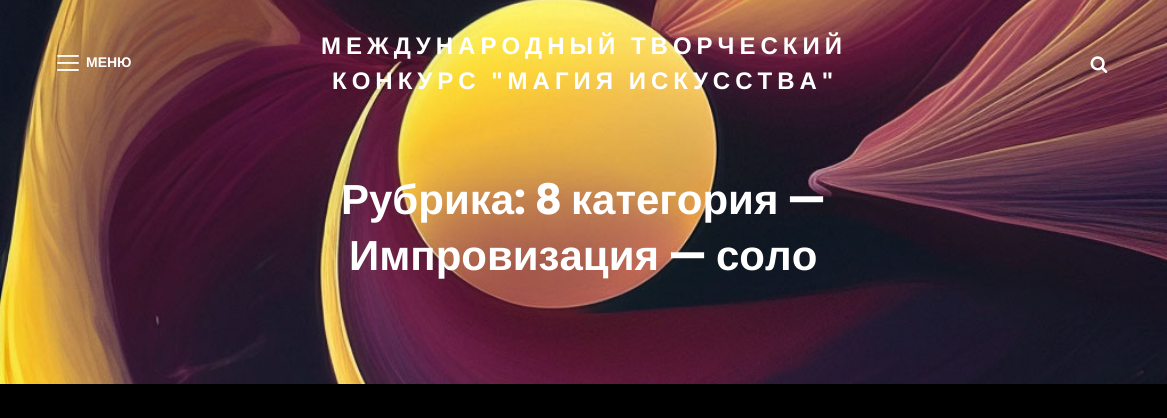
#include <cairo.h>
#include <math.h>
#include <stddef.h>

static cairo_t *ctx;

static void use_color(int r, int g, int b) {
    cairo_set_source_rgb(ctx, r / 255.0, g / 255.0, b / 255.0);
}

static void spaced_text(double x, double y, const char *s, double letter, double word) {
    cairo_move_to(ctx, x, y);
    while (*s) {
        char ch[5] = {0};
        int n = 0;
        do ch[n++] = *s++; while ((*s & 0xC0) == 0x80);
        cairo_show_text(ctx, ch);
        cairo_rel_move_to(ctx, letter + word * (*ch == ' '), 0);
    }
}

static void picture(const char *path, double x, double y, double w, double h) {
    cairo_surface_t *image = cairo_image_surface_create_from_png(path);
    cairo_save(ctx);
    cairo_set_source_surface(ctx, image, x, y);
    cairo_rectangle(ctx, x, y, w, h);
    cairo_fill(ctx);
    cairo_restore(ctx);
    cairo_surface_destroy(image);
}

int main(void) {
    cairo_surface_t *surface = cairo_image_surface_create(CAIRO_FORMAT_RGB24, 1167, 418);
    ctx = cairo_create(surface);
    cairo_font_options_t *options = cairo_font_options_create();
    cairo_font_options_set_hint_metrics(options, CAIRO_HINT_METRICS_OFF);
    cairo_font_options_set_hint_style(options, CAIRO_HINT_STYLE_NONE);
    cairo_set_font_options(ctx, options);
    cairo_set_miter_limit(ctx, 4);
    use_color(0, 0, 0);
    cairo_paint(ctx);
    picture("img3.png", 0, 0, 1167, 384);
    picture("img1.png", 57, 55, 22, 16);
    cairo_select_font_face(ctx, "Liberation Sans", CAIRO_FONT_SLANT_NORMAL, CAIRO_FONT_WEIGHT_BOLD);
    cairo_set_font_size(ctx, 14);
    use_color(255, 255, 255);
    cairo_move_to(ctx, 86, 67);
    cairo_show_text(ctx, "МЕНЮ");
    cairo_set_font_size(ctx, 24);
    spaced_text(321, 54, "МЕЖДУНАРОДНЫЙ ТВОРЧЕСКИЙ", 5, -1);
    spaced_text(332, 89, "КОНКУРС \"МАГИЯ ИСКУССТВА\"", 5, -1);
    picture("img2.png", 1090, 56, 18, 17);
    cairo_set_font_size(ctx, 42);
    cairo_move_to(ctx, 341, 214);
    cairo_show_text(ctx, "Рубрика");
    cairo_select_font_face(ctx, "Poppins", CAIRO_FONT_SLANT_NORMAL, CAIRO_FONT_WEIGHT_BOLD);
    cairo_move_to(ctx, 514, 214);
    cairo_show_text(ctx, ": 8");
    cairo_select_font_face(ctx, "Liberation Sans", CAIRO_FONT_SLANT_NORMAL, CAIRO_FONT_WEIGHT_BOLD);
    cairo_move_to(ctx, 571, 214);
    cairo_show_text(ctx, "категория");
    cairo_select_font_face(ctx, "Poppins", CAIRO_FONT_SLANT_NORMAL, CAIRO_FONT_WEIGHT_BOLD);
    cairo_move_to(ctx, 787, 214);
    cairo_show_text(ctx, "—");
    cairo_select_font_face(ctx, "Liberation Sans", CAIRO_FONT_SLANT_NORMAL, CAIRO_FONT_WEIGHT_BOLD);
    cairo_move_to(ctx, 349, 270);
    cairo_show_text(ctx, "Импровизация");
    cairo_select_font_face(ctx, "Poppins", CAIRO_FONT_SLANT_NORMAL, CAIRO_FONT_WEIGHT_BOLD);
    cairo_move_to(ctx, 668, 270);
    cairo_show_text(ctx, "—");
    cairo_select_font_face(ctx, "Liberation Sans", CAIRO_FONT_SLANT_NORMAL, CAIRO_FONT_WEIGHT_BOLD);
    cairo_move_to(ctx, 716, 270);
    cairo_show_text(ctx, "соло");
    cairo_surface_write_to_png(surface, "result.png");
    cairo_font_options_destroy(options);
    cairo_destroy(ctx);
    cairo_surface_destroy(surface);
    return 0;
}
